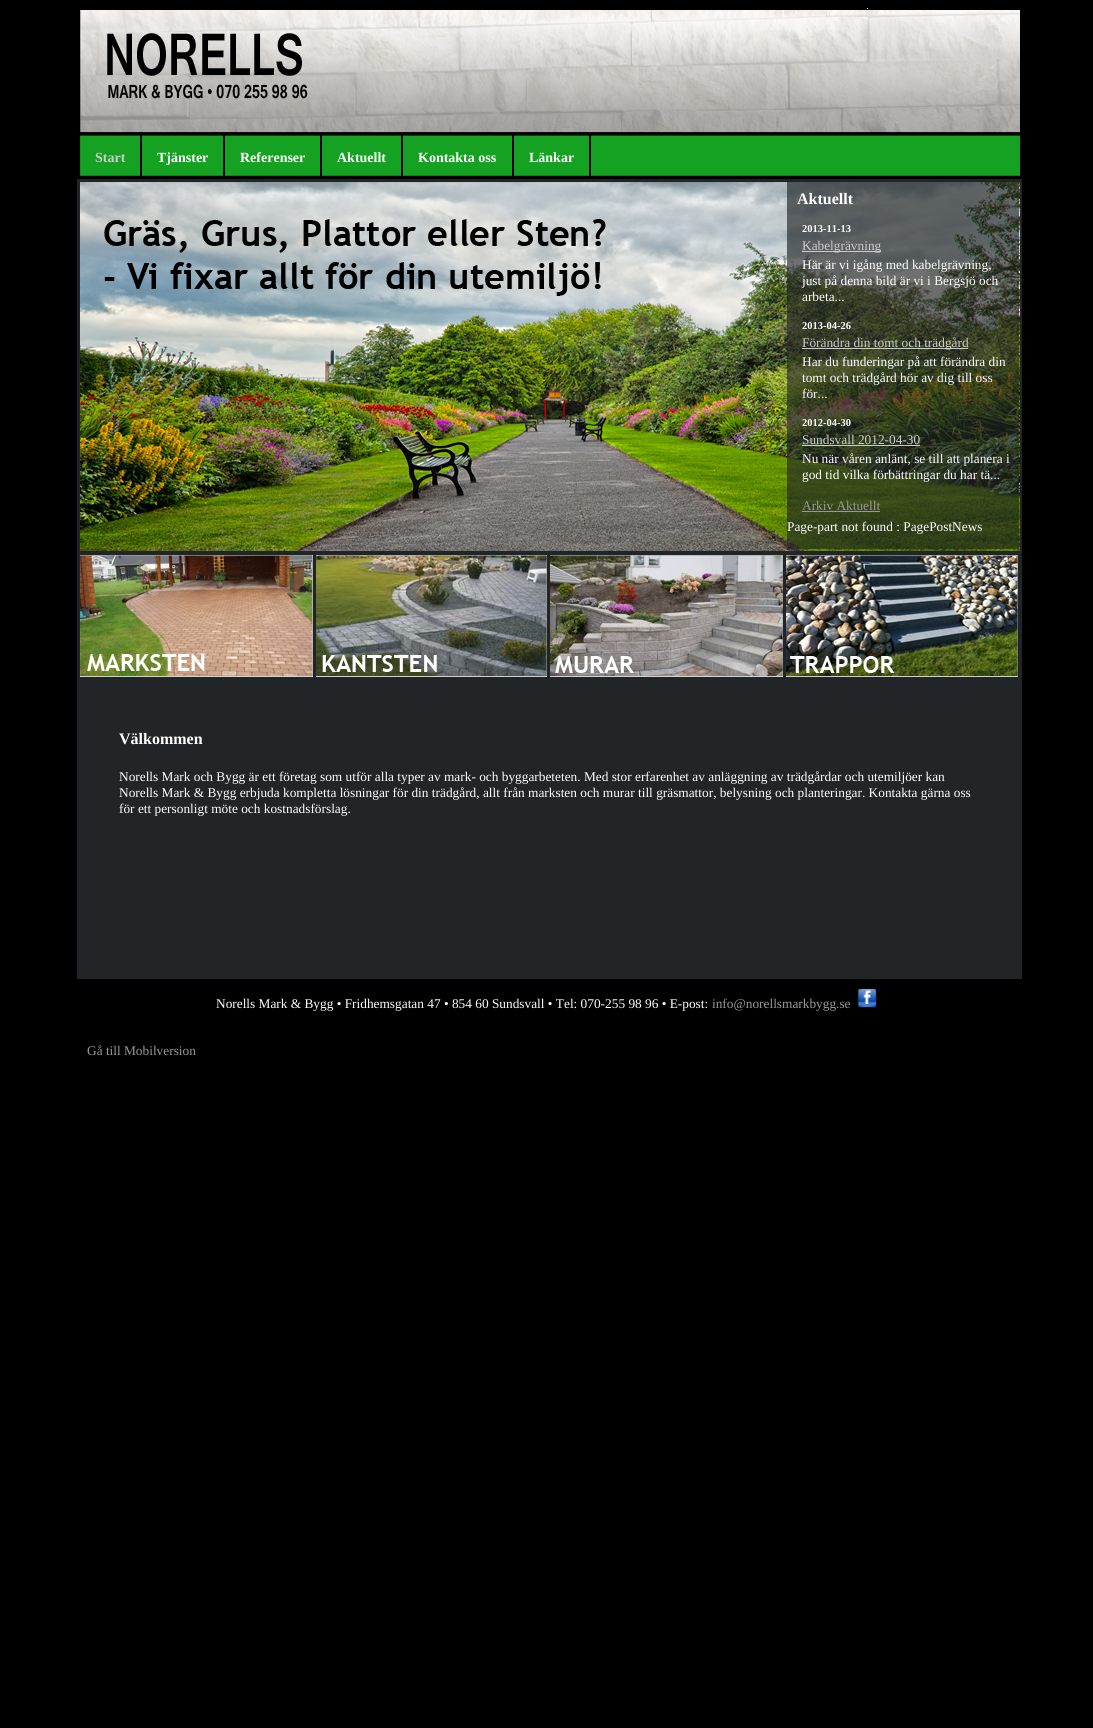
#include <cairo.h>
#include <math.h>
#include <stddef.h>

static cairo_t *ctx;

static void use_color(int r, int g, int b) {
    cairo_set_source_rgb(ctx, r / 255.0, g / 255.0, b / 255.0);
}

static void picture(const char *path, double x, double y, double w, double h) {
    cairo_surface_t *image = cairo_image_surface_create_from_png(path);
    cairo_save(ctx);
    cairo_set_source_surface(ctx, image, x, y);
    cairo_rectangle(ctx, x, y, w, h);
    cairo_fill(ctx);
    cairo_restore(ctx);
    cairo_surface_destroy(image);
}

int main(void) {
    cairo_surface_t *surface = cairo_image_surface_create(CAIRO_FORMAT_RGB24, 1093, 1728);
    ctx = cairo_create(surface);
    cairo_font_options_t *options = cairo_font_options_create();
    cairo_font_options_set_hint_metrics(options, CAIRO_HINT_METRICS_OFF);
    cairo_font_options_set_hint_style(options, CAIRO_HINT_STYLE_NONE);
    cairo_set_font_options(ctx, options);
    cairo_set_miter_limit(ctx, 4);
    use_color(0, 0, 0);
    cairo_paint(ctx);
    use_color(255, 255, 255);
    cairo_rectangle(ctx, 867, 8, 1, 1);
    cairo_fill(ctx);
    picture("img1.png", 80, 10, 940, 166);
    use_color(0, 0, 0);
    cairo_rectangle(ctx, 140, 133, 2, 43);
    cairo_fill(ctx);
    cairo_select_font_face(ctx, "Liberation Serif", CAIRO_FONT_SLANT_NORMAL, CAIRO_FONT_WEIGHT_BOLD);
    cairo_set_font_size(ctx, 14);
    use_color(204, 204, 204);
    cairo_move_to(ctx, 95, 162);
    cairo_show_text(ctx, "Start");
    use_color(0, 0, 0);
    cairo_rectangle(ctx, 223, 133, 2, 43);
    cairo_fill(ctx);
    use_color(255, 255, 255);
    cairo_move_to(ctx, 157, 162);
    cairo_show_text(ctx, "Tjänster");
    use_color(0, 0, 0);
    cairo_rectangle(ctx, 320, 133, 2, 43);
    cairo_fill(ctx);
    use_color(255, 255, 255);
    cairo_move_to(ctx, 240, 162);
    cairo_show_text(ctx, "Referenser");
    use_color(0, 0, 0);
    cairo_rectangle(ctx, 401, 133, 2, 43);
    cairo_fill(ctx);
    use_color(255, 255, 255);
    cairo_move_to(ctx, 337, 162);
    cairo_show_text(ctx, "Aktuellt");
    use_color(0, 0, 0);
    cairo_rectangle(ctx, 512, 133, 2, 43);
    cairo_fill(ctx);
    use_color(255, 255, 255);
    cairo_move_to(ctx, 418, 162);
    cairo_show_text(ctx, "Kontakta oss");
    use_color(0, 0, 0);
    cairo_rectangle(ctx, 589, 133, 2, 43);
    cairo_fill(ctx);
    use_color(255, 255, 255);
    cairo_move_to(ctx, 529, 162);
    cairo_show_text(ctx, "Länkar");
    use_color(34, 37, 39);
    cairo_rectangle(ctx, 77, 179, 945, 800);
    cairo_fill(ctx);
    picture("img2.png", 80, 182, 940, 369);
    cairo_set_source_rgba(ctx, 0.133, 0.145, 0.149, 0.65);
    cairo_rectangle(ctx, 787, 182, 232, 367);
    cairo_fill(ctx);
    cairo_set_font_size(ctx, 16);
    use_color(255, 255, 255);
    cairo_move_to(ctx, 797, 204);
    cairo_show_text(ctx, "Aktuellt");
    cairo_set_font_size(ctx, 10.5);
    cairo_move_to(ctx, 802, 232);
    cairo_show_text(ctx, "2013-11-13");
    use_color(204, 204, 204);
    cairo_rectangle(ctx, 802, 251, 79, 1);
    cairo_fill(ctx);
    cairo_select_font_face(ctx, "Liberation Serif", CAIRO_FONT_SLANT_NORMAL, CAIRO_FONT_WEIGHT_NORMAL);
    cairo_set_font_size(ctx, 13.33);
    cairo_move_to(ctx, 802, 250);
    cairo_show_text(ctx, "Kabelgrävning");
    use_color(255, 255, 255);
    cairo_move_to(ctx, 802, 269);
    cairo_show_text(ctx, "Här är vi igång med kabelgrävning,");
    cairo_move_to(ctx, 802, 285);
    cairo_show_text(ctx, "just på denna bild är vi i Bergsjö och");
    cairo_move_to(ctx, 802, 301);
    cairo_show_text(ctx, "arbeta...");
    cairo_select_font_face(ctx, "Liberation Serif", CAIRO_FONT_SLANT_NORMAL, CAIRO_FONT_WEIGHT_BOLD);
    cairo_set_font_size(ctx, 10.5);
    cairo_move_to(ctx, 802, 329);
    cairo_show_text(ctx, "2013-04-26");
    use_color(204, 204, 204);
    cairo_rectangle(ctx, 802, 348, 166, 1);
    cairo_fill(ctx);
    cairo_select_font_face(ctx, "Liberation Serif", CAIRO_FONT_SLANT_NORMAL, CAIRO_FONT_WEIGHT_NORMAL);
    cairo_set_font_size(ctx, 13.33);
    cairo_move_to(ctx, 802, 347);
    cairo_show_text(ctx, "Förändra din tomt och trädgård");
    use_color(255, 255, 255);
    cairo_move_to(ctx, 802, 366);
    cairo_show_text(ctx, "Har du funderingar på att förändra din");
    cairo_move_to(ctx, 802, 382);
    cairo_show_text(ctx, "tomt och trädgård hör av dig till oss");
    cairo_move_to(ctx, 802, 398);
    cairo_show_text(ctx, "för...");
    cairo_select_font_face(ctx, "Liberation Serif", CAIRO_FONT_SLANT_NORMAL, CAIRO_FONT_WEIGHT_BOLD);
    cairo_set_font_size(ctx, 10.5);
    cairo_move_to(ctx, 802, 426);
    cairo_show_text(ctx, "2012-04-30");
    cairo_select_font_face(ctx, "Liberation Serif", CAIRO_FONT_SLANT_NORMAL, CAIRO_FONT_WEIGHT_NORMAL);
    cairo_set_font_size(ctx, 13.33);
    use_color(204, 204, 204);
    cairo_move_to(ctx, 802, 444);
    cairo_show_text(ctx, "Sundsvall 2012-04-30");
    cairo_rectangle(ctx, 802, 445, 118, 1);
    cairo_fill(ctx);
    use_color(255, 255, 255);
    cairo_move_to(ctx, 802, 463);
    cairo_show_text(ctx, "Nu när våren anlänt, se till att planera i");
    cairo_move_to(ctx, 802, 479);
    cairo_show_text(ctx, "god tid vilka förbättringar du har tä...");
    use_color(153, 153, 153);
    cairo_move_to(ctx, 802, 510);
    cairo_show_text(ctx, "Arkiv Aktuellt");
    cairo_rectangle(ctx, 802, 511, 78, 1);
    cairo_fill(ctx);
    use_color(255, 255, 255);
    cairo_move_to(ctx, 787, 531);
    cairo_show_text(ctx, "Page-part not found : PagePostNews");
    picture("img3.png", 80, 555, 233, 122);
    picture("img4.png", 316, 555, 231, 122);
    picture("img5.png", 550, 555, 233, 122);
    picture("img6.png", 786, 555, 232, 122);
    cairo_select_font_face(ctx, "Liberation Serif", CAIRO_FONT_SLANT_NORMAL, CAIRO_FONT_WEIGHT_BOLD);
    cairo_set_font_size(ctx, 16);
    cairo_move_to(ctx, 119, 744);
    cairo_show_text(ctx, "Välkommen");
    cairo_select_font_face(ctx, "Liberation Serif", CAIRO_FONT_SLANT_NORMAL, CAIRO_FONT_WEIGHT_NORMAL);
    cairo_set_font_size(ctx, 13.33);
    cairo_move_to(ctx, 119, 781);
    cairo_show_text(ctx, "Norells Mark och Bygg är ett företag som utför alla typer av mark- och byggarbeteten. Med stor erfarenhet av anläggning av trädgårdar och utemiljöer kan");
    cairo_move_to(ctx, 119, 797);
    cairo_show_text(ctx, "Norells Mark & Bygg erbjuda kompletta lösningar för din trädgård, allt från marksten och murar till gräsmattor, belysning och planteringar. Kontakta gärna oss");
    cairo_move_to(ctx, 119, 813);
    cairo_show_text(ctx, "för ett personligt möte och kostnadsförslag.");
    cairo_move_to(ctx, 216, 1008);
    cairo_show_text(ctx, "Norells Mark & Bygg • Fridhemsgatan 47 • 854 60 Sundsvall • Tel: 070-255 98 96 • E-post:");
    use_color(153, 153, 153);
    cairo_move_to(ctx, 712, 1008);
    cairo_show_text(ctx, "info@norellsmarkbygg.se");
    picture("img7.png", 857, 989, 20, 19);
    cairo_move_to(ctx, 87, 1055);
    cairo_show_text(ctx, "Gå till Mobilversion");
    cairo_surface_write_to_png(surface, "result.png");
    cairo_font_options_destroy(options);
    cairo_destroy(ctx);
    cairo_surface_destroy(surface);
    return 0;
}
